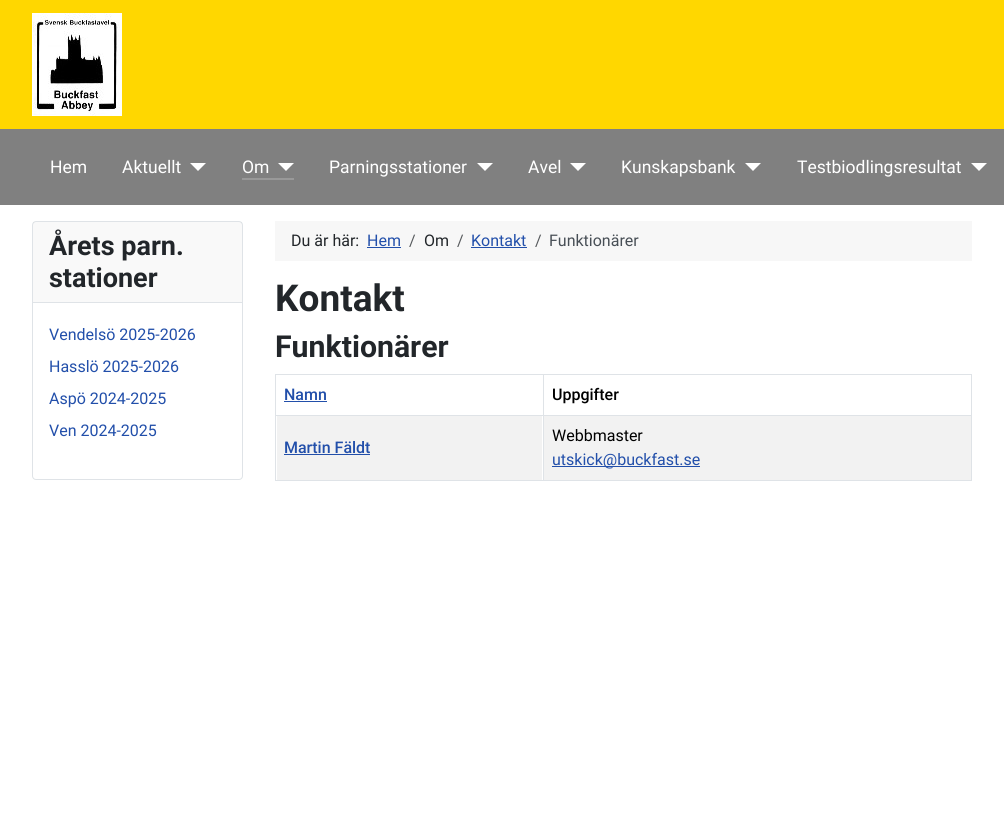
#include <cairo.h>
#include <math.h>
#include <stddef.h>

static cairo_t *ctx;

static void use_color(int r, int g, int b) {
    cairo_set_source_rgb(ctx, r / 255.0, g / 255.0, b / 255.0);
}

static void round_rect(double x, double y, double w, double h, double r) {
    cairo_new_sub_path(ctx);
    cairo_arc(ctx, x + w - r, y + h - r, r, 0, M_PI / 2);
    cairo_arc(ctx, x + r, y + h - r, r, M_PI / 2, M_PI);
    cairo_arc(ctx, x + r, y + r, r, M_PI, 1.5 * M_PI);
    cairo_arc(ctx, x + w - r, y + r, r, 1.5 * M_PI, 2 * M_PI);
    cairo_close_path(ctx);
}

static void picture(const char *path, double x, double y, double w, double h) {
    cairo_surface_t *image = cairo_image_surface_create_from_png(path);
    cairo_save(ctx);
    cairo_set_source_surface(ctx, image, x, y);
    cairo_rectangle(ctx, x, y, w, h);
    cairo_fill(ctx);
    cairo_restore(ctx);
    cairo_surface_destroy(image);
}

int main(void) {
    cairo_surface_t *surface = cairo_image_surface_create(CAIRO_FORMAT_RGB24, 1004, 825);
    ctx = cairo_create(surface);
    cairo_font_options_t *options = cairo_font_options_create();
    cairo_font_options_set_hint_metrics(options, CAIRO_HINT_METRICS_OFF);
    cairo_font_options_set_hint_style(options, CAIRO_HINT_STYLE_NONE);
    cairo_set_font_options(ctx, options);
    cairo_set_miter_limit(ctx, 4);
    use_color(255, 255, 255);
    cairo_paint(ctx);
    use_color(255, 215, 0);
    cairo_rectangle(ctx, 0, 0, 1004, 129);
    cairo_fill(ctx);
    picture("img1.png", 32, 13, 90, 103);
    use_color(128, 128, 128);
    cairo_rectangle(ctx, 0, 129, 1004, 76);
    cairo_fill(ctx);
    cairo_select_font_face(ctx, "Roboto", CAIRO_FONT_SLANT_NORMAL, CAIRO_FONT_WEIGHT_NORMAL);
    cairo_set_font_size(ctx, 17.5);
    use_color(255, 255, 255);
    cairo_move_to(ctx, 50, 173);
    cairo_show_text(ctx, "Hem");
    cairo_move_to(ctx, 122, 173);
    cairo_show_text(ctx, "Aktuellt");
    cairo_new_path(ctx);
    cairo_move_to(ctx, 190, 163);
    cairo_line_to(ctx, 206, 163);
    cairo_line_to(ctx, 198, 171);
    cairo_close_path(ctx);
    cairo_fill(ctx);
    cairo_move_to(ctx, 242, 173);
    cairo_show_text(ctx, "Om");
    cairo_new_path(ctx);
    cairo_move_to(ctx, 278, 163);
    cairo_line_to(ctx, 294, 163);
    cairo_line_to(ctx, 286, 171);
    cairo_close_path(ctx);
    cairo_fill(ctx);
    use_color(153, 153, 153);
    cairo_rectangle(ctx, 242, 178, 52, 2);
    cairo_fill(ctx);
    use_color(255, 255, 255);
    cairo_move_to(ctx, 329, 173);
    cairo_show_text(ctx, "Parningsstationer");
    cairo_new_path(ctx);
    cairo_move_to(ctx, 477, 163);
    cairo_line_to(ctx, 493, 163);
    cairo_line_to(ctx, 485, 171);
    cairo_close_path(ctx);
    cairo_fill(ctx);
    cairo_move_to(ctx, 528, 173);
    cairo_show_text(ctx, "Avel");
    cairo_new_path(ctx);
    cairo_move_to(ctx, 570, 163);
    cairo_line_to(ctx, 586, 163);
    cairo_line_to(ctx, 578, 171);
    cairo_close_path(ctx);
    cairo_fill(ctx);
    cairo_move_to(ctx, 621, 173);
    cairo_show_text(ctx, "Kunskapsbank");
    cairo_new_path(ctx);
    cairo_move_to(ctx, 745, 163);
    cairo_line_to(ctx, 761, 163);
    cairo_line_to(ctx, 753, 171);
    cairo_close_path(ctx);
    cairo_fill(ctx);
    cairo_move_to(ctx, 797, 173);
    cairo_show_text(ctx, "Testbiodlingsresultat");
    cairo_new_path(ctx);
    cairo_move_to(ctx, 971, 163);
    cairo_line_to(ctx, 987, 163);
    cairo_line_to(ctx, 979, 171);
    cairo_close_path(ctx);
    cairo_fill(ctx);
    round_rect(32.5, 221.5, 210, 258, 3.5);
    use_color(223, 227, 231);
    cairo_set_line_width(ctx, 1);
    cairo_stroke(ctx);
    cairo_set_source_rgba(ctx, 0.133, 0.149, 0.165, 0.03);
    cairo_rectangle(ctx, 33, 222, 209, 80);
    cairo_fill(ctx);
    use_color(223, 227, 231);
    cairo_rectangle(ctx, 33, 302, 209, 1);
    cairo_fill(ctx);
    cairo_select_font_face(ctx, "Roboto", CAIRO_FONT_SLANT_NORMAL, CAIRO_FONT_WEIGHT_BOLD);
    cairo_set_font_size(ctx, 27);
    use_color(34, 38, 42);
    cairo_move_to(ctx, 49, 255);
    cairo_show_text(ctx, "Årets parn.");
    cairo_move_to(ctx, 49, 287);
    cairo_show_text(ctx, "stationer");
    cairo_select_font_face(ctx, "Roboto", CAIRO_FONT_SLANT_NORMAL, CAIRO_FONT_WEIGHT_NORMAL);
    cairo_set_font_size(ctx, 16);
    use_color(34, 79, 170);
    cairo_move_to(ctx, 49, 340);
    cairo_show_text(ctx, "Vendelsö 2025-2026");
    cairo_move_to(ctx, 49, 372);
    cairo_show_text(ctx, "Hasslö 2025-2026");
    cairo_move_to(ctx, 49, 404);
    cairo_show_text(ctx, "Aspö 2024-2025");
    cairo_move_to(ctx, 49, 436);
    cairo_show_text(ctx, "Ven 2024-2025");
    use_color(247, 247, 247);
    cairo_rectangle(ctx, 275, 221, 697, 40);
    cairo_fill(ctx);
    use_color(34, 38, 42);
    cairo_move_to(ctx, 291, 246);
    cairo_show_text(ctx, "Du är här:");
    use_color(34, 79, 170);
    cairo_move_to(ctx, 367, 246);
    cairo_show_text(ctx, "Hem");
    cairo_rectangle(ctx, 367, 247, 34, 1);
    cairo_fill(ctx);
    use_color(87, 90, 93);
    cairo_move_to(ctx, 409, 246);
    cairo_show_text(ctx, "/");
    use_color(34, 38, 42);
    cairo_move_to(ctx, 424, 246);
    cairo_show_text(ctx, "Om");
    use_color(87, 90, 93);
    cairo_move_to(ctx, 457, 246);
    cairo_show_text(ctx, "/");
    use_color(34, 79, 170);
    cairo_move_to(ctx, 471, 246);
    cairo_show_text(ctx, "Kontakt");
    cairo_rectangle(ctx, 471, 247, 56, 1);
    cairo_fill(ctx);
    use_color(87, 90, 93);
    cairo_move_to(ctx, 535, 246);
    cairo_show_text(ctx, "/");
    use_color(72, 79, 86);
    cairo_move_to(ctx, 549, 246);
    cairo_show_text(ctx, "Funktionärer");
    cairo_select_font_face(ctx, "Roboto", CAIRO_FONT_SLANT_NORMAL, CAIRO_FONT_WEIGHT_BOLD);
    cairo_set_font_size(ctx, 37);
    use_color(34, 38, 42);
    cairo_move_to(ctx, 275, 311);
    cairo_show_text(ctx, "Kontakt");
    cairo_set_font_size(ctx, 30.25);
    cairo_move_to(ctx, 275, 357);
    cairo_show_text(ctx, "Funktionärer");
    use_color(223, 227, 231);
    cairo_rectangle(ctx, 275, 374, 697, 1);
    cairo_fill(ctx);
    cairo_select_font_face(ctx, "Roboto Medium", CAIRO_FONT_SLANT_NORMAL, CAIRO_FONT_WEIGHT_NORMAL);
    cairo_set_font_size(ctx, 16);
    use_color(34, 79, 170);
    cairo_move_to(ctx, 284, 400);
    cairo_show_text(ctx, "Namn");
    cairo_rectangle(ctx, 284, 401, 43, 1);
    cairo_fill(ctx);
    use_color(0, 0, 0);
    cairo_move_to(ctx, 552, 400);
    cairo_show_text(ctx, "Uppgifter");
    use_color(223, 227, 231);
    cairo_rectangle(ctx, 275, 415, 697, 1);
    cairo_fill(ctx);
    cairo_rectangle(ctx, 275, 480, 697, 1);
    cairo_fill(ctx);
    use_color(242, 242, 242);
    cairo_rectangle(ctx, 277, 416, 265, 64);
    cairo_fill(ctx);
    use_color(223, 227, 231);
    cairo_rectangle(ctx, 275, 374, 1, 107);
    cairo_fill(ctx);
    use_color(34, 79, 170);
    cairo_move_to(ctx, 284, 453);
    cairo_show_text(ctx, "Martin Fäldt");
    cairo_rectangle(ctx, 284, 454, 86, 1);
    cairo_fill(ctx);
    use_color(242, 242, 242);
    cairo_rectangle(ctx, 544, 416, 427, 64);
    cairo_fill(ctx);
    use_color(223, 227, 231);
    cairo_rectangle(ctx, 971, 374, 1, 107);
    cairo_fill(ctx);
    cairo_rectangle(ctx, 543, 374, 1, 107);
    cairo_fill(ctx);
    cairo_select_font_face(ctx, "Roboto", CAIRO_FONT_SLANT_NORMAL, CAIRO_FONT_WEIGHT_NORMAL);
    use_color(0, 0, 0);
    cairo_move_to(ctx, 552, 441);
    cairo_show_text(ctx, "Webbmaster");
    use_color(34, 79, 170);
    cairo_rectangle(ctx, 552, 466, 148, 1);
    cairo_fill(ctx);
    cairo_move_to(ctx, 552, 465);
    cairo_show_text(ctx, "utskick@buckfast.se");
    cairo_surface_write_to_png(surface, "result.png");
    cairo_font_options_destroy(options);
    cairo_destroy(ctx);
    cairo_surface_destroy(surface);
    return 0;
}
